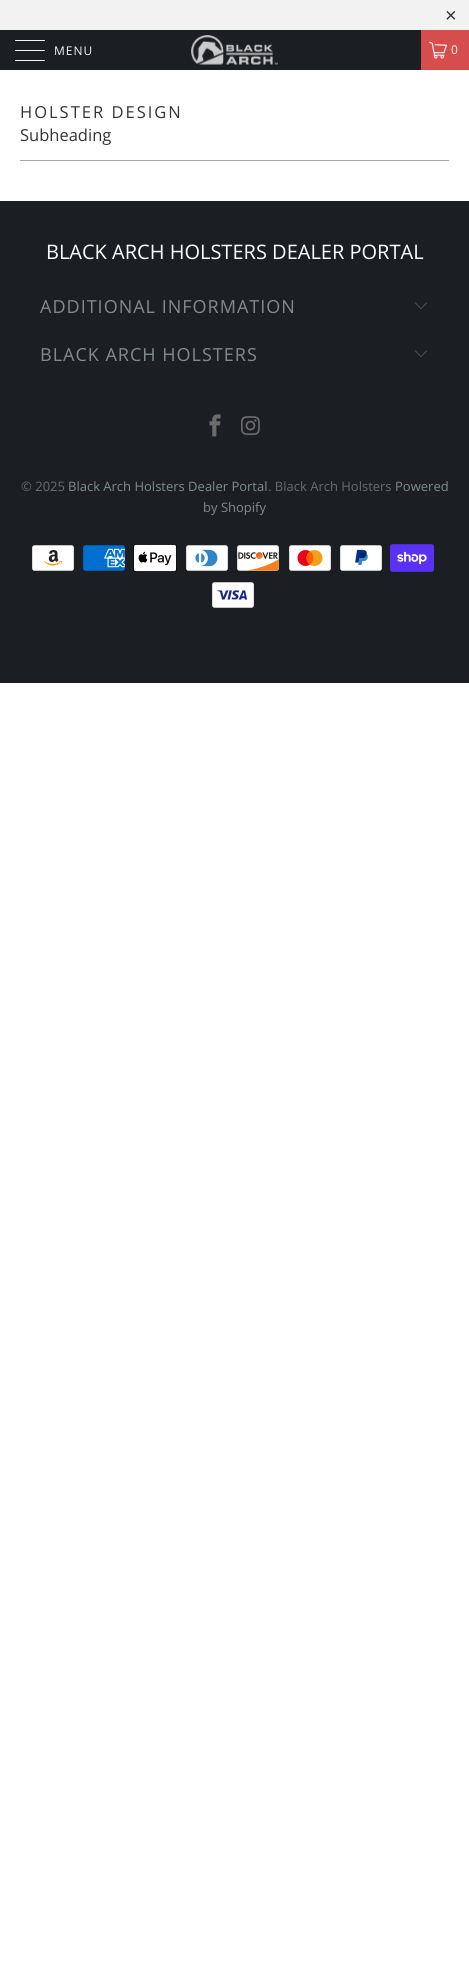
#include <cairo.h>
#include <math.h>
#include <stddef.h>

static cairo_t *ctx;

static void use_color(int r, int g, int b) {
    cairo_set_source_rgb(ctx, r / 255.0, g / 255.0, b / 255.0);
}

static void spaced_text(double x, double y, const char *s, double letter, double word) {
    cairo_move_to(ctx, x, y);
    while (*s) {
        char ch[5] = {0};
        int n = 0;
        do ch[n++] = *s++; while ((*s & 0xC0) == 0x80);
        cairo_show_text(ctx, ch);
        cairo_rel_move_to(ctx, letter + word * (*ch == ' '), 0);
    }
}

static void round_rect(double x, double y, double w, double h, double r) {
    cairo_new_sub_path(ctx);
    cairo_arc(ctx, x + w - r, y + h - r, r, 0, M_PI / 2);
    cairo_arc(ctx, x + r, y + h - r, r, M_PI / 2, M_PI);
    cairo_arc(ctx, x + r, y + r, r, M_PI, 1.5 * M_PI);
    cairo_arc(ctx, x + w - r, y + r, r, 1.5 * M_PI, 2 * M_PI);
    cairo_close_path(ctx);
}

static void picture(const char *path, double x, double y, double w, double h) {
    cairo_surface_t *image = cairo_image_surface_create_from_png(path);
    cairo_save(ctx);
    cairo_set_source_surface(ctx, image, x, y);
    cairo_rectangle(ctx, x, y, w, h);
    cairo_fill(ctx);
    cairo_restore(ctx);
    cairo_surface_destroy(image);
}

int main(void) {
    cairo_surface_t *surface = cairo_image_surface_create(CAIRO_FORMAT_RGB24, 469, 1972);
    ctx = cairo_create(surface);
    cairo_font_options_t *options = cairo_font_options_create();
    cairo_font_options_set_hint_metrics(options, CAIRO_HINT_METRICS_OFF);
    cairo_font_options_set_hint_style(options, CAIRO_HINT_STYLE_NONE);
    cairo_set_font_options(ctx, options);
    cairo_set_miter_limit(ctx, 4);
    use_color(255, 255, 255);
    cairo_paint(ctx);
    use_color(242, 242, 242);
    cairo_rectangle(ctx, 0, 0, 469, 30);
    cairo_fill(ctx);
    cairo_select_font_face(ctx, "Liberation Sans", CAIRO_FONT_SLANT_NORMAL, CAIRO_FONT_WEIGHT_NORMAL);
    cairo_set_font_size(ctx, 20);
    use_color(51, 51, 51);
    spaced_text(445, 22, "×", 2, 0);
    use_color(27, 31, 35);
    cairo_rectangle(ctx, 0, 30, 421, 40);
    cairo_fill(ctx);
    use_color(244, 244, 244);
    round_rect(15, 40, 30, 1, 0.5);
    cairo_fill(ctx);
    round_rect(15, 50, 30, 1, 0.5);
    cairo_fill(ctx);
    round_rect(15, 60, 30, 1, 0.5);
    cairo_fill(ctx);
    cairo_select_font_face(ctx, "Open Sans", CAIRO_FONT_SLANT_NORMAL, CAIRO_FONT_WEIGHT_NORMAL);
    cairo_set_font_size(ctx, 12);
    spaced_text(54, 55, "MENU", 1, 0);
    picture("img1.png", 191, 35, 87, 30);
    use_color(213, 77, 77);
    cairo_rectangle(ctx, 421, 30, 48, 40);
    cairo_fill(ctx);
    picture("img2.png", 429, 41, 18, 18);
    use_color(244, 244, 244);
    spaced_text(451, 54, "0", 1, 0);
    cairo_set_font_size(ctx, 16.5);
    use_color(51, 51, 51);
    spaced_text(20, 118, "HOLSTER DESIGN", 2, 0);
    cairo_move_to(ctx, 20, 141);
    cairo_show_text(ctx, "Subheading");
    use_color(170, 170, 170);
    cairo_rectangle(ctx, 20, 160, 429, 1);
    cairo_fill(ctx);
    use_color(27, 31, 35);
    cairo_rectangle(ctx, 0, 201, 469, 482);
    cairo_fill(ctx);
    cairo_set_font_size(ctx, 20);
    use_color(255, 255, 255);
    cairo_move_to(ctx, 46, 259);
    cairo_show_text(ctx, "BLACK ARCH HOLSTERS DEALER PORTAL");
    cairo_set_font_size(ctx, 18);
    use_color(127, 140, 141);
    spaced_text(40, 313, "ADDITIONAL INFORMATION", 1, 0);
    picture("img3.png", 415, 302, 12, 7);
    spaced_text(40, 361, "BLACK ARCH HOLSTERS", 1, 0);
    picture("img3.png", 415, 350, 12, 7);
    picture("img4.png", 209, 414, 12, 23);
    picture("img5.png", 241, 416, 19, 19);
    cairo_set_font_size(ctx, 13);
    use_color(107, 107, 107);
    cairo_move_to(ctx, 21, 491);
    cairo_show_text(ctx, "© 2025");
    use_color(127, 140, 141);
    cairo_move_to(ctx, 68, 491);
    cairo_show_text(ctx, "Black Arch Holsters Dealer Portal");
    use_color(107, 107, 107);
    cairo_move_to(ctx, 268, 491);
    cairo_show_text(ctx, ". Black Arch Holsters");
    use_color(127, 140, 141);
    cairo_move_to(ctx, 395, 491);
    cairo_show_text(ctx, "Powered");
    cairo_move_to(ctx, 203, 512);
    cairo_show_text(ctx, "by Shopify");
    picture("img6.png", 32, 545, 42, 26);
    picture("img7.png", 83, 545, 42, 26);
    picture("img8.png", 133, 544, 44, 28);
    picture("img9.png", 186, 545, 42, 26);
    picture("img10.png", 237, 545, 42, 26);
    picture("img11.png", 289, 545, 42, 26);
    picture("img12.png", 340, 545, 42, 26);
    picture("img13.png", 390, 544, 44, 28);
    picture("img14.png", 212, 582, 42, 26);
    cairo_surface_write_to_png(surface, "result.png");
    cairo_font_options_destroy(options);
    cairo_destroy(ctx);
    cairo_surface_destroy(surface);
    return 0;
}
